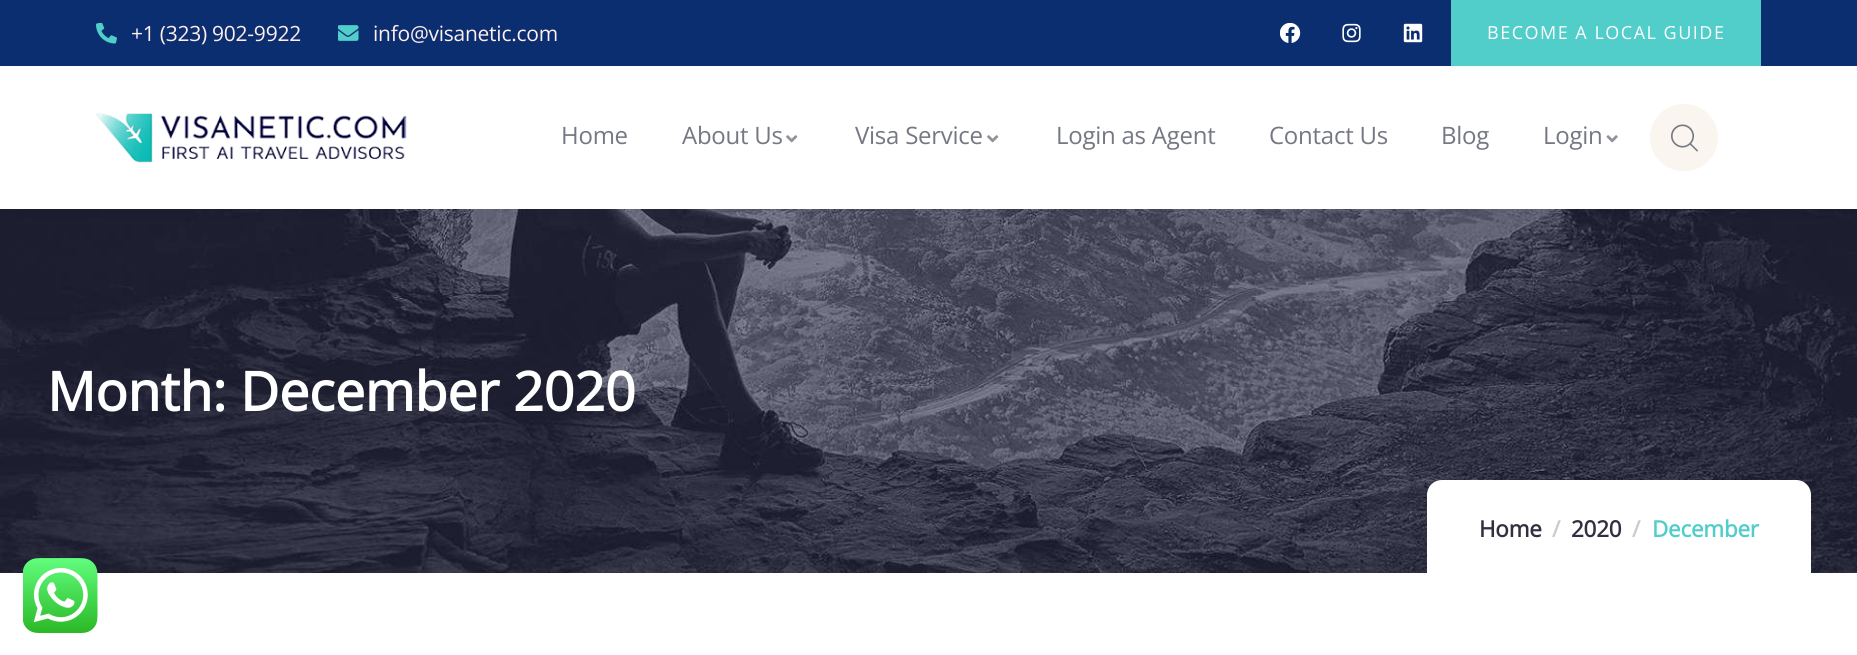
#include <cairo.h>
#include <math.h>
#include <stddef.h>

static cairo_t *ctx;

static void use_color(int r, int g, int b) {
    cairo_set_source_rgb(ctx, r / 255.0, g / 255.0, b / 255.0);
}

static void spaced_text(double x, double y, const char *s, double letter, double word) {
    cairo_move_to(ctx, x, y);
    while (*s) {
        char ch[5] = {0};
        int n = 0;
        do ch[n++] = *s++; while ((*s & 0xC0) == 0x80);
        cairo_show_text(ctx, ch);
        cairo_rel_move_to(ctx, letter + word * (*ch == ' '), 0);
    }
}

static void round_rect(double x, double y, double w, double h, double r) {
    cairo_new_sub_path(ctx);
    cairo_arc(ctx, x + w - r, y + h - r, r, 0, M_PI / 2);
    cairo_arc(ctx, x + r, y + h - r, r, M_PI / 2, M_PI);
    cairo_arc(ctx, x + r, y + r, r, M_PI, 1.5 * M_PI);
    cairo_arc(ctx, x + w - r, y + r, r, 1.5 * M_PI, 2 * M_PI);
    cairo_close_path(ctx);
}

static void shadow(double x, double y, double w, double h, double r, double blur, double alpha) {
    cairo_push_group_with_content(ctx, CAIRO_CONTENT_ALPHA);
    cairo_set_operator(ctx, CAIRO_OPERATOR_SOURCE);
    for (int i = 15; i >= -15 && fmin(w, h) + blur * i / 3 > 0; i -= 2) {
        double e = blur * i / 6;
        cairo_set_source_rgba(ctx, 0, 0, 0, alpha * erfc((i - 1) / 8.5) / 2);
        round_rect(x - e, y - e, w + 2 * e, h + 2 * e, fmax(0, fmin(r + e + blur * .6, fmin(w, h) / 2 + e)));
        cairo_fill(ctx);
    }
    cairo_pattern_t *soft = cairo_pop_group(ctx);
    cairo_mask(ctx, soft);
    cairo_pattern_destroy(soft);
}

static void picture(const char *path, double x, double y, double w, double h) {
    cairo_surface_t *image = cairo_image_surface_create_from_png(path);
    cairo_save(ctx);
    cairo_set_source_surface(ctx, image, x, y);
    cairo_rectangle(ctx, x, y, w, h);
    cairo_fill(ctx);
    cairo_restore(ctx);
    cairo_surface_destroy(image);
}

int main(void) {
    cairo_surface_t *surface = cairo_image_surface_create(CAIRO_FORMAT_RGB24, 1857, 655);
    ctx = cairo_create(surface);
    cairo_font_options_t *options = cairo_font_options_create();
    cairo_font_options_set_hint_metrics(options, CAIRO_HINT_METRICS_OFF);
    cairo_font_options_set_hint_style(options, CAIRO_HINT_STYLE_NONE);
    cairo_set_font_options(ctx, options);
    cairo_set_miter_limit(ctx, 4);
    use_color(255, 255, 255);
    cairo_paint(ctx);
    use_color(11, 46, 112);
    cairo_rectangle(ctx, 0, 0, 1857, 66);
    cairo_fill(ctx);
    picture("img1.png", 96, 23, 21, 21);
    cairo_select_font_face(ctx, "Open Sans", CAIRO_FONT_SLANT_NORMAL, CAIRO_FONT_WEIGHT_NORMAL);
    cairo_set_font_size(ctx, 21);
    use_color(255, 238, 238);
    spaced_text(131, 41, "+1 (323) 902-9922", -0.25, 0);
    picture("img2.png", 338, 25, 21, 16);
    spaced_text(373, 41, "info@visanetic.com", -0.25, 0);
    picture("img3.png", 1280, 23, 21, 20);
    picture("img4.png", 1342, 23, 19, 20);
    picture("img5.png", 1403, 23, 20, 20);
    picture("img10.png", 0, 209, 1857, 364);
    use_color(0, 0, 0);
    shadow(0, 74, 1857, 142, 0, 7.5, 0.05);
    use_color(81, 205, 202);
    cairo_rectangle(ctx, 1451, 0, 310, 66);
    cairo_fill(ctx);
    cairo_set_font_size(ctx, 18);
    use_color(255, 255, 255);
    spaced_text(1487, 39, "BECOME A LOCAL GUIDE", 1.5, 0);
    cairo_rectangle(ctx, 0, 68, 1857, 141);
    cairo_fill(ctx);
    picture("img6.png", 96, 113, 311, 50);
    cairo_set_font_size(ctx, 24);
    use_color(117, 119, 131);
    spaced_text(561, 144, "Home", -0.25, 0);
    spaced_text(682, 144, "About Us", -0.25, 0);
    picture("img7.png", 786, 135, 12, 8);
    spaced_text(855, 144, "Visa Service", -0.25, 0);
    picture("img7.png", 987, 135, 12, 8);
    spaced_text(1056, 144, "Login as Agent", -0.25, 0);
    spaced_text(1269, 144, "Contact Us", -0.25, 0);
    spaced_text(1441, 144, "Blog", -0.25, 0);
    spaced_text(1543, 144, "Login", -0.25, 0);
    picture("img8.png", 1606, 135, 12, 8);
    use_color(250, 245, 238);
    round_rect(1650, 104, 68, 67, 33.5);
    cairo_fill(ctx);
    picture("img9.png", 1671, 124, 27, 28);
    cairo_select_font_face(ctx, "Open Sans", CAIRO_FONT_SLANT_NORMAL, CAIRO_FONT_WEIGHT_BOLD);
    cairo_set_font_size(ctx, 54);
    use_color(255, 255, 255);
    spaced_text(47, 411, "Month: December 2020", -0.25, 0);
    cairo_new_path(ctx);
    cairo_move_to(ctx, 1442, 480);
    cairo_line_to(ctx, 1796, 480);
    cairo_curve_to(ctx, 1804.5, 480, 1811, 486.5, 1811, 495);
    cairo_line_to(ctx, 1811, 573);
    cairo_line_to(ctx, 1427, 573);
    cairo_line_to(ctx, 1427, 495);
    cairo_curve_to(ctx, 1427, 486.5, 1433.5, 480, 1442, 480);
    cairo_close_path(ctx);
    cairo_fill(ctx);
    cairo_set_font_size(ctx, 22.5);
    use_color(49, 48, 65);
    spaced_text(1479, 537, "Home", -0.25, 0);
    use_color(204, 204, 204);
    spaced_text(1552, 537, "/", -0.25, 0);
    use_color(49, 48, 65);
    spaced_text(1571, 537, "2020", -0.25, 0);
    use_color(204, 204, 204);
    spaced_text(1632, 537, "/", -0.25, 0);
    use_color(81, 205, 202);
    spaced_text(1652, 537, "December", -0.25, 0);
    picture("img11.png", 23, 558, 75, 75);
    cairo_surface_write_to_png(surface, "result.png");
    cairo_font_options_destroy(options);
    cairo_destroy(ctx);
    cairo_surface_destroy(surface);
    return 0;
}
